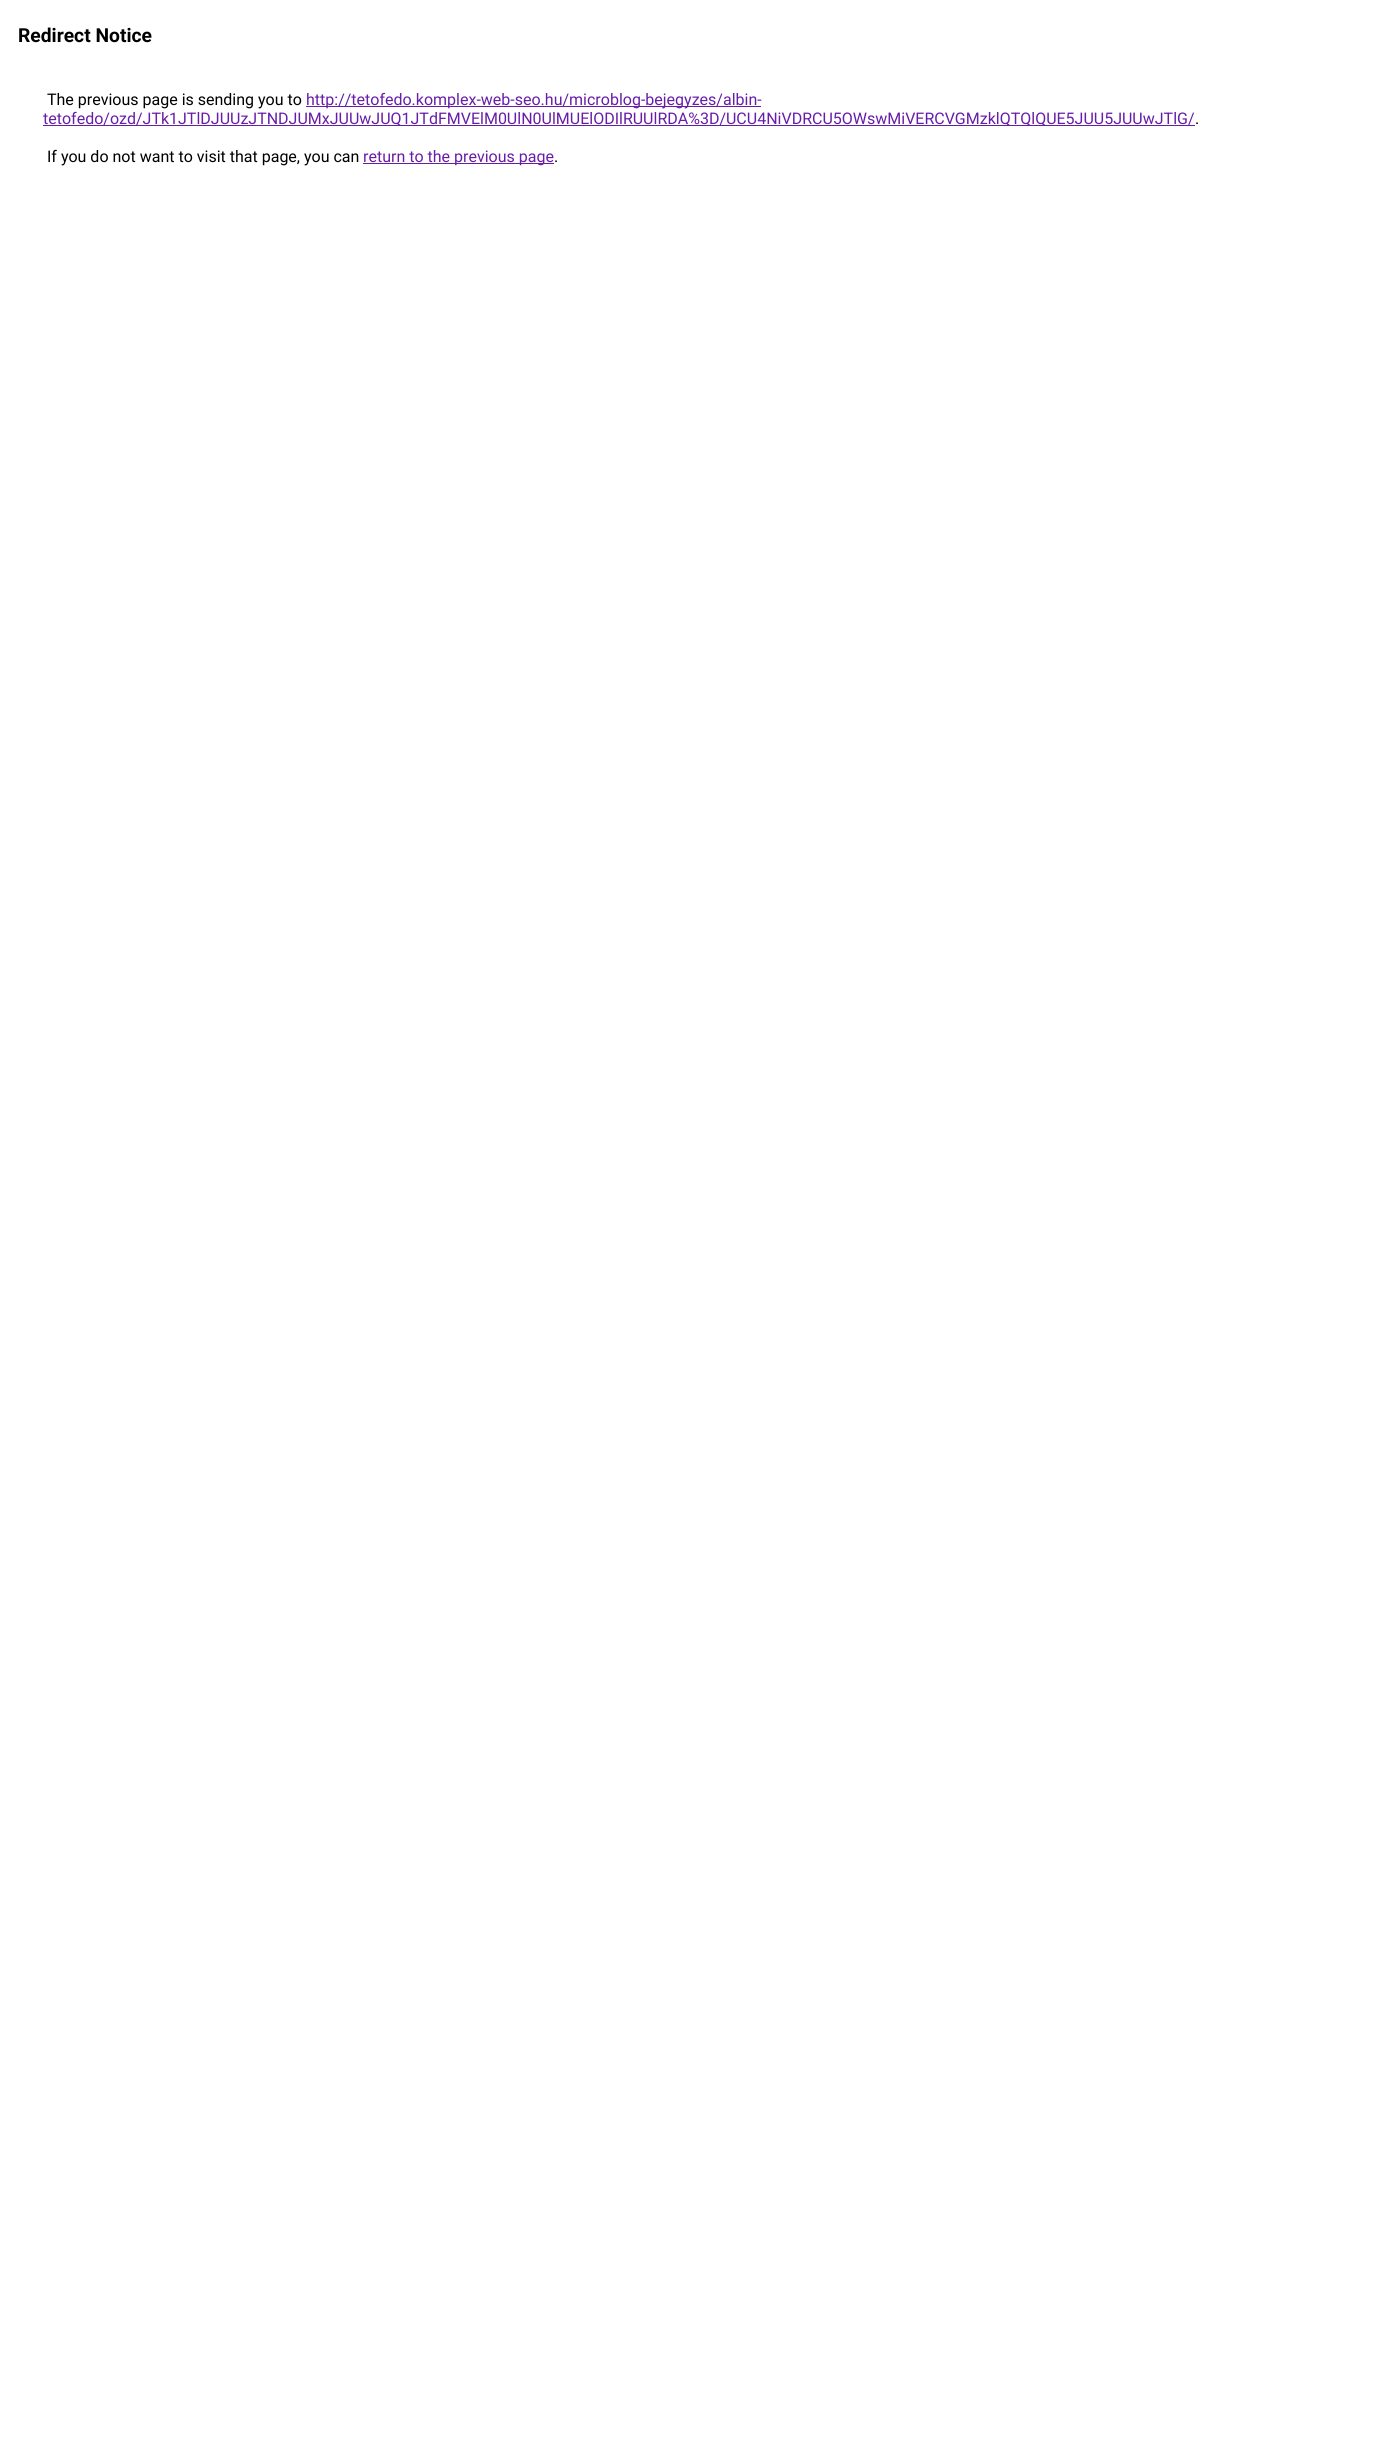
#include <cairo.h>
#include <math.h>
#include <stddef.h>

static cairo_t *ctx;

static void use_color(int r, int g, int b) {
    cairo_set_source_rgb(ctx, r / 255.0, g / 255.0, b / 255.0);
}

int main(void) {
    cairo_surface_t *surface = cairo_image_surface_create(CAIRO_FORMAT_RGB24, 1375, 2461);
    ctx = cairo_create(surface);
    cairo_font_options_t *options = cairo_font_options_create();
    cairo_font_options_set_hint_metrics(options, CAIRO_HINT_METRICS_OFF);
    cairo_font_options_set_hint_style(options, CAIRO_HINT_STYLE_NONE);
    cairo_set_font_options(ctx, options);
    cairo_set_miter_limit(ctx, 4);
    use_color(255, 255, 255);
    cairo_paint(ctx);
    cairo_select_font_face(ctx, "Roboto", CAIRO_FONT_SLANT_NORMAL, CAIRO_FONT_WEIGHT_BOLD);
    cairo_set_font_size(ctx, 19.25);
    use_color(0, 0, 0);
    cairo_move_to(ctx, 18, 42);
    cairo_show_text(ctx, "Redirect Notice");
    cairo_select_font_face(ctx, "Roboto", CAIRO_FONT_SLANT_NORMAL, CAIRO_FONT_WEIGHT_NORMAL);
    cairo_set_font_size(ctx, 16);
    cairo_move_to(ctx, 47, 105);
    cairo_show_text(ctx, "The previous page is sending you to");
    use_color(104, 29, 168);
    cairo_rectangle(ctx, 306, 106, 455, 1);
    cairo_fill(ctx);
    cairo_move_to(ctx, 306, 105);
    cairo_show_text(ctx, "http://tetofedo.komplex-web-seo.hu/microblog-bejegyzes/albin-");
    cairo_rectangle(ctx, 43, 125, 1152, 1);
    cairo_fill(ctx);
    cairo_move_to(ctx, 43, 124);
    cairo_show_text(ctx, "tetofedo/ozd/JTk1JTlDJUUzJTNDJUMxJUUwJUQ1JTdFMVElM0UlN0UlMUElODIlRUUlRDA%3D/UCU4NiVDRCU5OWswMiVERCVGMzklQTQlQUE5JUU5JUUwJTlG/");
    use_color(0, 0, 0);
    cairo_move_to(ctx, 1195, 124);
    cairo_show_text(ctx, ".");
    cairo_move_to(ctx, 47, 162);
    cairo_show_text(ctx, "If you do not want to visit that page, you can");
    use_color(104, 29, 168);
    cairo_rectangle(ctx, 363, 163, 191, 1);
    cairo_fill(ctx);
    cairo_move_to(ctx, 363, 162);
    cairo_show_text(ctx, "return to the previous page");
    use_color(0, 0, 0);
    cairo_move_to(ctx, 554, 162);
    cairo_show_text(ctx, ".");
    cairo_surface_write_to_png(surface, "result.png");
    cairo_font_options_destroy(options);
    cairo_destroy(ctx);
    cairo_surface_destroy(surface);
    return 0;
}
